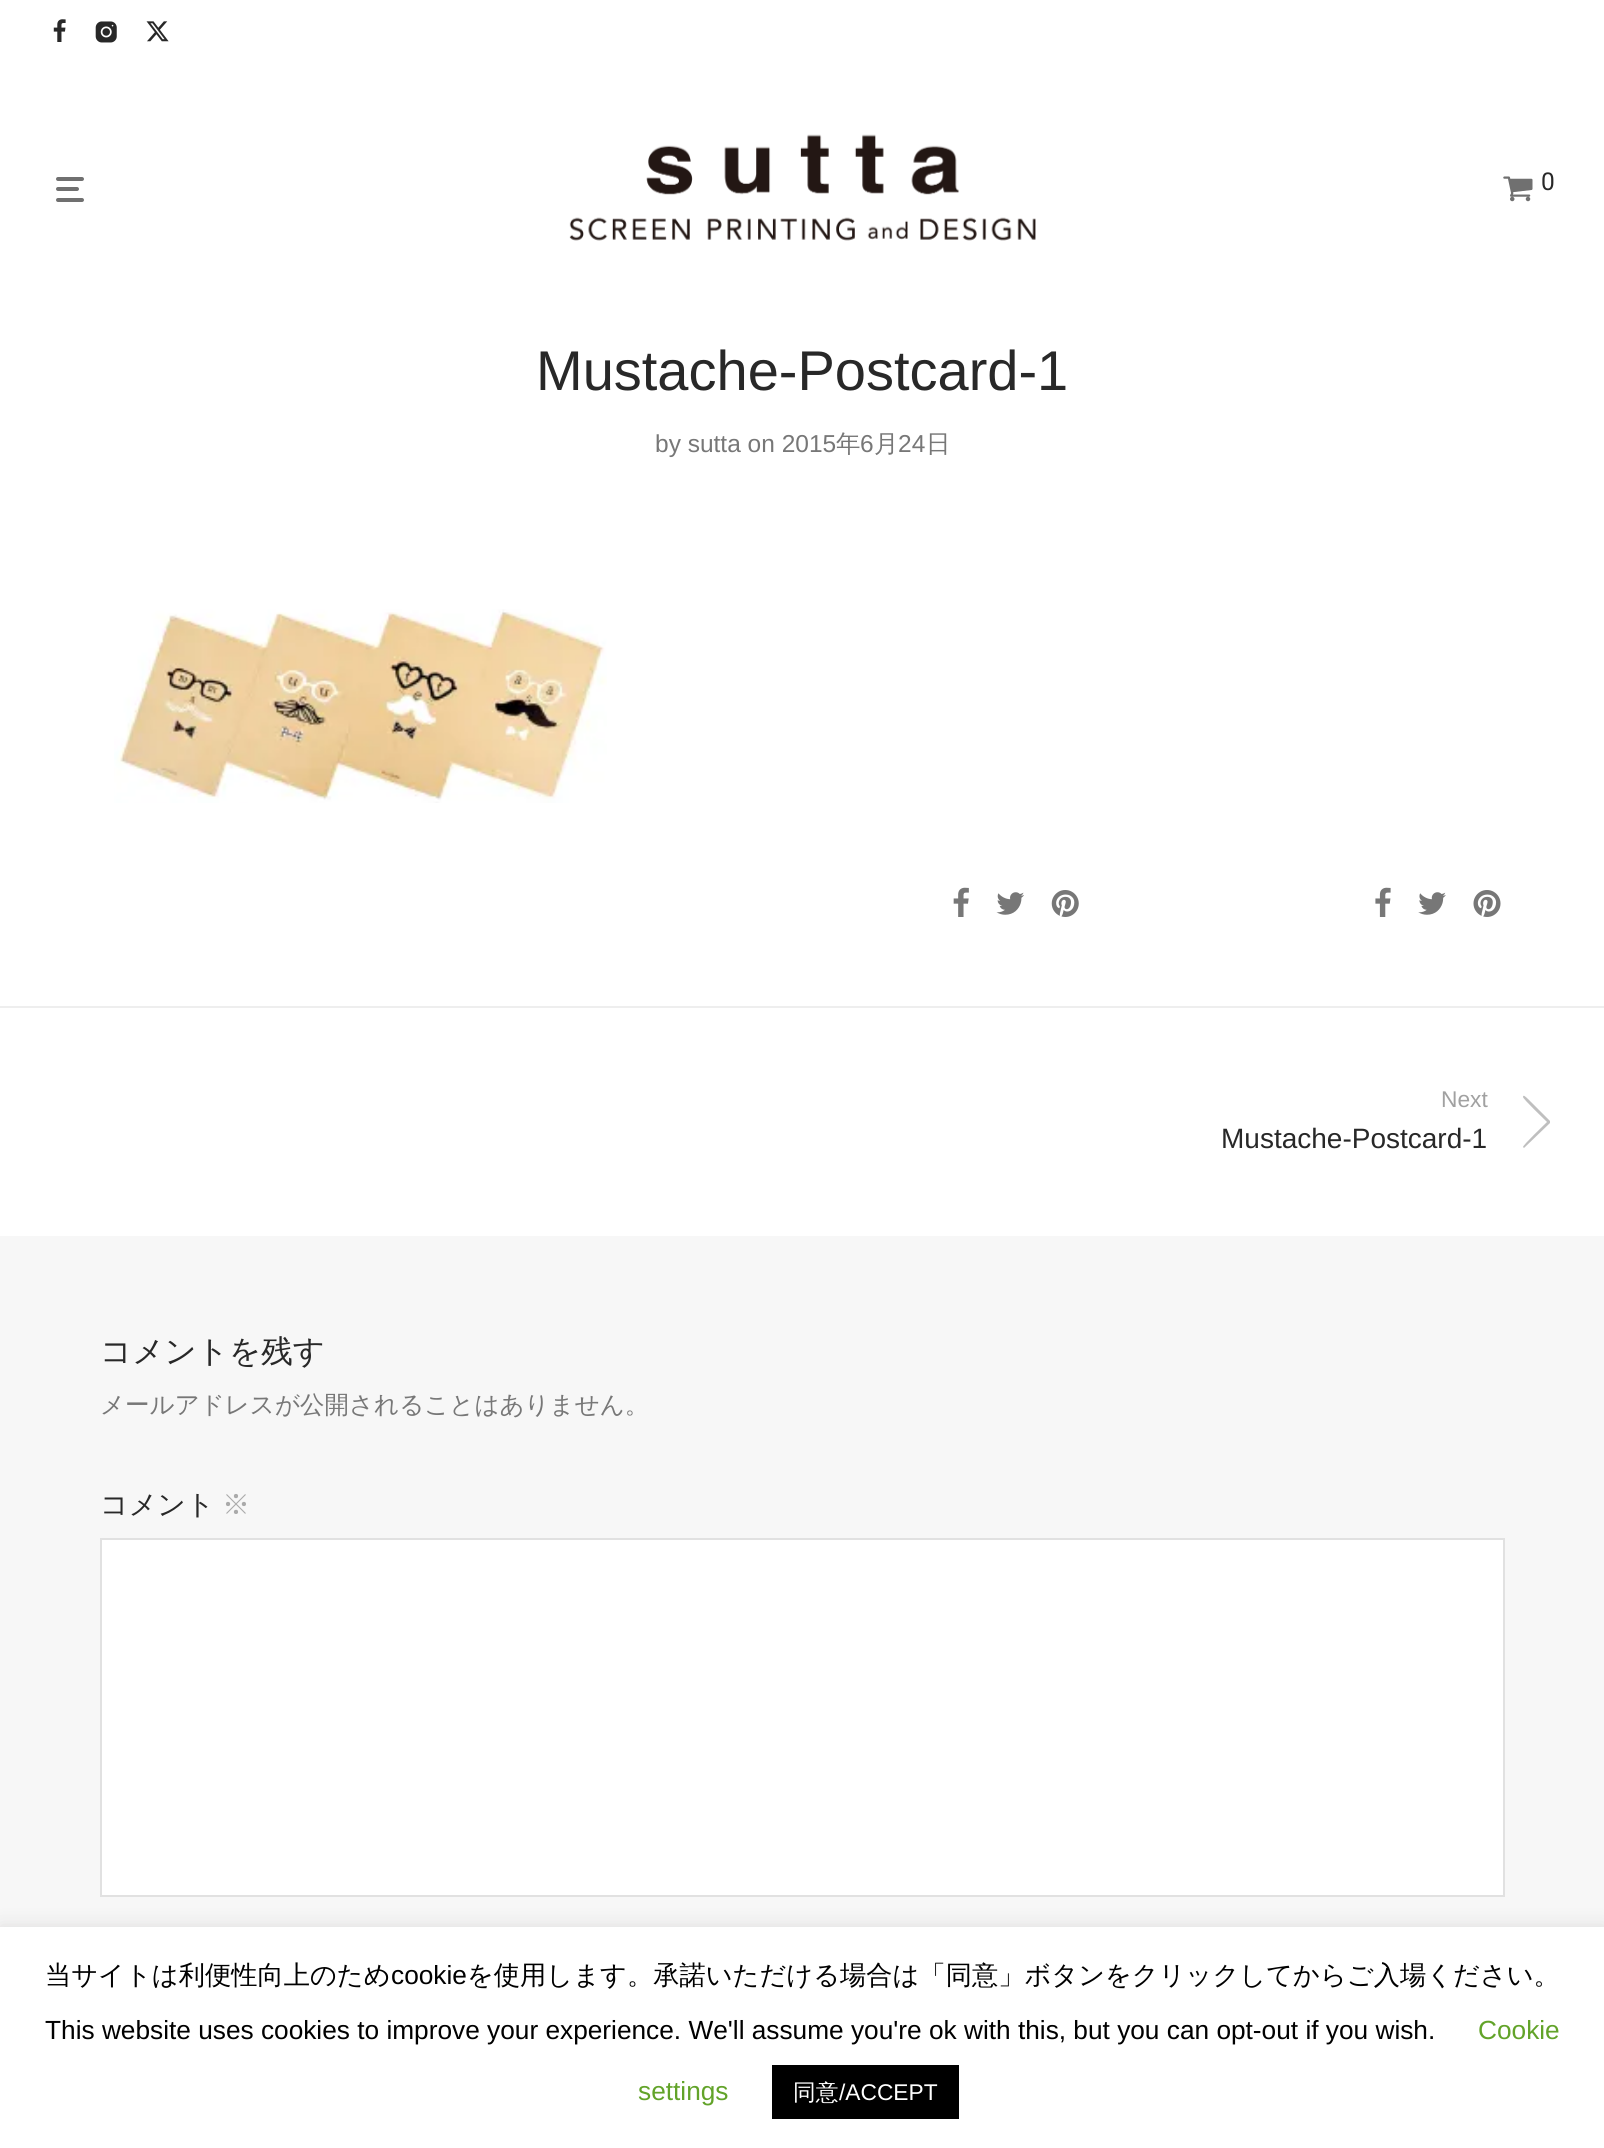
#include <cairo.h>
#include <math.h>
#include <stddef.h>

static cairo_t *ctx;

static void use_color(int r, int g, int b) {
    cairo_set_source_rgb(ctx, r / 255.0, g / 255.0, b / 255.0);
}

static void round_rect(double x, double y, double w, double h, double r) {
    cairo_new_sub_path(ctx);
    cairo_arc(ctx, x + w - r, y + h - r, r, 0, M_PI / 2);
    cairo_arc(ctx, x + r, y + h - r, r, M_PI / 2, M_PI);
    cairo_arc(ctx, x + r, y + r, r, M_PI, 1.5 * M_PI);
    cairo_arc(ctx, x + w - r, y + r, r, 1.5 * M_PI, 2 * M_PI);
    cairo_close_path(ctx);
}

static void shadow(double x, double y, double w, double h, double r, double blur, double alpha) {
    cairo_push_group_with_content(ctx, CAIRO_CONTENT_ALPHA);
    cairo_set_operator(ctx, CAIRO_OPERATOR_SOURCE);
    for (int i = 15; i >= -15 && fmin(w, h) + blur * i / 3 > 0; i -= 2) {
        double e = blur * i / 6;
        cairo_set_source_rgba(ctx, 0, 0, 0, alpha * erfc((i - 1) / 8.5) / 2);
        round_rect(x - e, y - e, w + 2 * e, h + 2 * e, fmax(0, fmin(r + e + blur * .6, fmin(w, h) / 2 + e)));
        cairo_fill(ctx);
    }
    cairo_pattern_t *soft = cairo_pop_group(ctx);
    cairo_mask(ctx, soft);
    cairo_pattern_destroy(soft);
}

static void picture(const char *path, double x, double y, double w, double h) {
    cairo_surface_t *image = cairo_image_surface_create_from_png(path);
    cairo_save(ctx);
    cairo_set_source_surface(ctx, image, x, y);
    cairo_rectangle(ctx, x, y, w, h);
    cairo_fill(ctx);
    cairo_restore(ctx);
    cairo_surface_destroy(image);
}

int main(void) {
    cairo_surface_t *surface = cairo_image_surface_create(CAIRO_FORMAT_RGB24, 1604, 2148);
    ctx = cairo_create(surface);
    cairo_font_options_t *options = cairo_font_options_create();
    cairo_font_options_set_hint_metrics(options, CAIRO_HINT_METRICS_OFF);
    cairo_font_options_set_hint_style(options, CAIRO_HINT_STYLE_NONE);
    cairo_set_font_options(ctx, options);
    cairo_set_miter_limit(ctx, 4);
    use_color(255, 255, 255);
    cairo_paint(ctx);
    picture("img1.png", 53, 19, 13, 23);
    picture("img2.png", 95, 21, 22, 22);
    picture("img3.png", 146, 21, 23, 21);
    use_color(112, 112, 112);
    round_rect(56, 177, 28, 4, 2);
    cairo_fill(ctx);
    round_rect(56, 187, 23, 4, 2);
    cairo_fill(ctx);
    round_rect(56, 198, 28, 4, 2);
    cairo_fill(ctx);
    picture("img4.png", 569, 134, 467, 107);
    picture("img5.png", 1503, 176, 30, 26);
    cairo_select_font_face(ctx, "Roboto", CAIRO_FONT_SLANT_NORMAL, CAIRO_FONT_WEIGHT_NORMAL);
    cairo_set_font_size(ctx, 24.5);
    use_color(40, 40, 40);
    cairo_move_to(ctx, 1541, 190);
    cairo_show_text(ctx, "0");
    cairo_select_font_face(ctx, "Liberation Sans", CAIRO_FONT_SLANT_NORMAL, CAIRO_FONT_WEIGHT_NORMAL);
    cairo_set_font_size(ctx, 56);
    cairo_move_to(ctx, 536, 390);
    cairo_show_text(ctx, "Mustache-Postcard-1");
    cairo_set_font_size(ctx, 24.5);
    use_color(119, 119, 119);
    cairo_move_to(ctx, 655, 452);
    cairo_show_text(ctx, "by sutta on 2015");
    cairo_select_font_face(ctx, "WenQuanYi Zen Hei Medium", CAIRO_FONT_SLANT_NORMAL, CAIRO_FONT_WEIGHT_NORMAL);
    cairo_move_to(ctx, 836, 452);
    cairo_show_text(ctx, "年");
    cairo_select_font_face(ctx, "Liberation Sans", CAIRO_FONT_SLANT_NORMAL, CAIRO_FONT_WEIGHT_NORMAL);
    cairo_move_to(ctx, 860, 452);
    cairo_show_text(ctx, "6");
    cairo_select_font_face(ctx, "WenQuanYi Zen Hei Medium", CAIRO_FONT_SLANT_NORMAL, CAIRO_FONT_WEIGHT_NORMAL);
    cairo_move_to(ctx, 874, 452);
    cairo_show_text(ctx, "月");
    cairo_select_font_face(ctx, "Liberation Sans", CAIRO_FONT_SLANT_NORMAL, CAIRO_FONT_WEIGHT_NORMAL);
    cairo_move_to(ctx, 898, 452);
    cairo_show_text(ctx, "24");
    cairo_select_font_face(ctx, "WenQuanYi Zen Hei Medium", CAIRO_FONT_SLANT_NORMAL, CAIRO_FONT_WEIGHT_NORMAL);
    cairo_move_to(ctx, 926, 452);
    cairo_show_text(ctx, "日");
    picture("img6.png", 114, 609, 493, 194);
    picture("img7.png", 953, 887, 16, 30);
    picture("img8.png", 996, 892, 28, 23);
    picture("img9.png", 1051, 890, 28, 27);
    picture("img10.png", 1375, 887, 16, 30);
    picture("img11.png", 1418, 892, 28, 23);
    picture("img12.png", 1473, 890, 28, 27);
    use_color(238, 238, 238);
    cairo_rectangle(ctx, 0, 1006, 1604, 2);
    cairo_fill(ctx);
    cairo_select_font_face(ctx, "Liberation Sans", CAIRO_FONT_SLANT_NORMAL, CAIRO_FONT_WEIGHT_NORMAL);
    cairo_set_font_size(ctx, 22.75);
    use_color(161, 161, 161);
    cairo_move_to(ctx, 1441, 1107);
    cairo_show_text(ctx, "Next");
    use_color(191, 191, 191);
    cairo_new_path(ctx);
    cairo_move_to(ctx, 1550, 1123);
    cairo_line_to(ctx, 1524, 1148);
    cairo_curve_to(ctx, 1524, 1148, 1523, 1147, 1523, 1147);
    cairo_curve_to(ctx, 1523, 1145, 1544, 1125, 1547, 1122);
    cairo_curve_to(ctx, 1544, 1119, 1523, 1099, 1523, 1097);
    cairo_curve_to(ctx, 1523, 1094, 1526, 1097, 1529, 1100);
    cairo_line_to(ctx, 1550, 1121);
    cairo_close_path(ctx);
    cairo_fill(ctx);
    cairo_set_font_size(ctx, 28);
    use_color(40, 40, 40);
    cairo_move_to(ctx, 1221, 1148);
    cairo_show_text(ctx, "Mustache-Postcard-1");
    use_color(247, 247, 247);
    cairo_rectangle(ctx, 0, 1236, 1604, 691);
    cairo_fill(ctx);
    cairo_select_font_face(ctx, "WenQuanYi Zen Hei Medium", CAIRO_FONT_SLANT_NORMAL, CAIRO_FONT_WEIGHT_NORMAL);
    cairo_set_font_size(ctx, 31.5);
    use_color(40, 40, 40);
    cairo_move_to(ctx, 100, 1362);
    cairo_show_text(ctx, "コメントを残す");
    cairo_set_font_size(ctx, 24.5);
    use_color(119, 119, 119);
    cairo_move_to(ctx, 100, 1413);
    cairo_show_text(ctx, "メールアドレスが公開されることはありません。");
    cairo_set_font_size(ctx, 28);
    use_color(40, 40, 40);
    cairo_move_to(ctx, 100, 1514);
    cairo_show_text(ctx, "コメント");
    use_color(170, 170, 170);
    cairo_move_to(ctx, 222, 1514);
    cairo_show_text(ctx, "※");
    use_color(255, 255, 255);
    cairo_rectangle(ctx, 101, 1539, 1403, 357);
    cairo_fill_preserve(ctx);
    use_color(225, 225, 225);
    cairo_stroke(ctx);
    use_color(172, 171, 171);
    shadow(0, 1925, 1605, 222, 0, 9, 0.3);
    use_color(255, 255, 255);
    cairo_rectangle(ctx, 0, 1927, 1604, 221);
    cairo_fill(ctx);
    cairo_set_font_size(ctx, 26.25);
    use_color(0, 0, 0);
    cairo_move_to(ctx, 45, 1984);
    cairo_show_text(ctx, "当サイトは利便性向上のため");
    cairo_select_font_face(ctx, "Liberation Sans", CAIRO_FONT_SLANT_NORMAL, CAIRO_FONT_WEIGHT_NORMAL);
    cairo_move_to(ctx, 391, 1984);
    cairo_show_text(ctx, "cookie");
    cairo_select_font_face(ctx, "WenQuanYi Zen Hei Medium", CAIRO_FONT_SLANT_NORMAL, CAIRO_FONT_WEIGHT_NORMAL);
    cairo_move_to(ctx, 467, 1984);
    cairo_show_text(ctx, "を使用します。承諾いただける場合は「同意」ボタンをクリックしてからご入場ください。");
    cairo_select_font_face(ctx, "Liberation Sans", CAIRO_FONT_SLANT_NORMAL, CAIRO_FONT_WEIGHT_NORMAL);
    cairo_move_to(ctx, 45, 2039);
    cairo_show_text(ctx, "This website uses cookies to improve your experience. We'll assume you're ok with this, but you can opt-out if you wish.");
    use_color(98, 163, 41);
    cairo_move_to(ctx, 1478, 2039);
    cairo_show_text(ctx, "Cookie");
    cairo_move_to(ctx, 638, 2100);
    cairo_show_text(ctx, "settings");
    use_color(0, 0, 0);
    cairo_rectangle(ctx, 772, 2065, 187, 54);
    cairo_fill(ctx);
    cairo_select_font_face(ctx, "WenQuanYi Zen Hei Medium", CAIRO_FONT_SLANT_NORMAL, CAIRO_FONT_WEIGHT_NORMAL);
    cairo_set_font_size(ctx, 22.75);
    use_color(255, 255, 255);
    cairo_move_to(ctx, 793, 2100);
    cairo_show_text(ctx, "同意");
    cairo_select_font_face(ctx, "Liberation Sans", CAIRO_FONT_SLANT_NORMAL, CAIRO_FONT_WEIGHT_NORMAL);
    cairo_move_to(ctx, 839, 2100);
    cairo_show_text(ctx, "/ACCEPT");
    cairo_surface_write_to_png(surface, "result.png");
    cairo_font_options_destroy(options);
    cairo_destroy(ctx);
    cairo_surface_destroy(surface);
    return 0;
}
